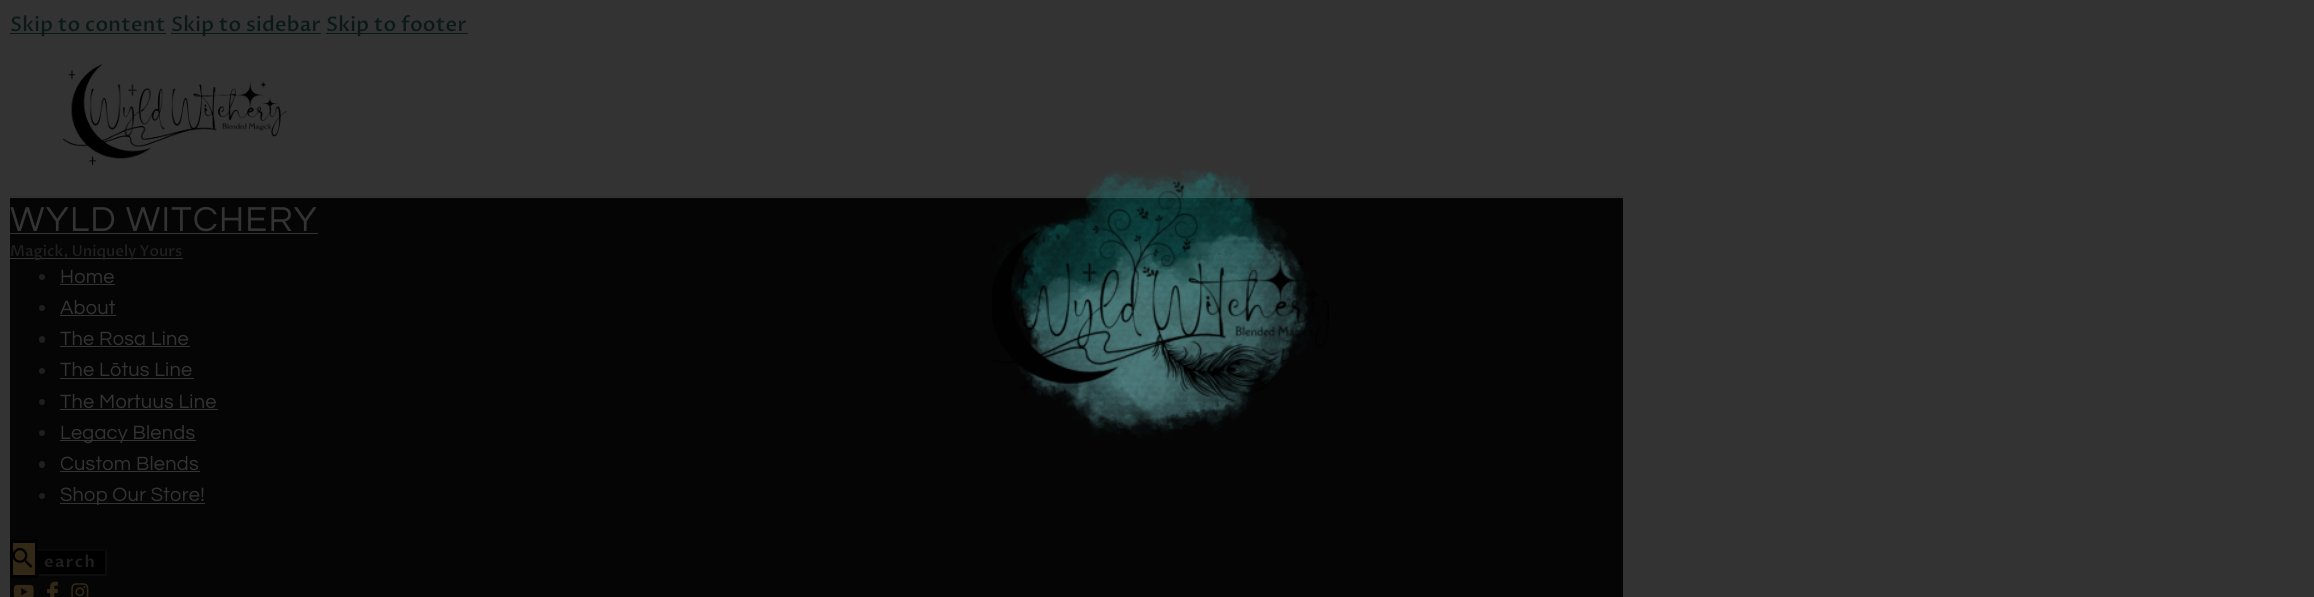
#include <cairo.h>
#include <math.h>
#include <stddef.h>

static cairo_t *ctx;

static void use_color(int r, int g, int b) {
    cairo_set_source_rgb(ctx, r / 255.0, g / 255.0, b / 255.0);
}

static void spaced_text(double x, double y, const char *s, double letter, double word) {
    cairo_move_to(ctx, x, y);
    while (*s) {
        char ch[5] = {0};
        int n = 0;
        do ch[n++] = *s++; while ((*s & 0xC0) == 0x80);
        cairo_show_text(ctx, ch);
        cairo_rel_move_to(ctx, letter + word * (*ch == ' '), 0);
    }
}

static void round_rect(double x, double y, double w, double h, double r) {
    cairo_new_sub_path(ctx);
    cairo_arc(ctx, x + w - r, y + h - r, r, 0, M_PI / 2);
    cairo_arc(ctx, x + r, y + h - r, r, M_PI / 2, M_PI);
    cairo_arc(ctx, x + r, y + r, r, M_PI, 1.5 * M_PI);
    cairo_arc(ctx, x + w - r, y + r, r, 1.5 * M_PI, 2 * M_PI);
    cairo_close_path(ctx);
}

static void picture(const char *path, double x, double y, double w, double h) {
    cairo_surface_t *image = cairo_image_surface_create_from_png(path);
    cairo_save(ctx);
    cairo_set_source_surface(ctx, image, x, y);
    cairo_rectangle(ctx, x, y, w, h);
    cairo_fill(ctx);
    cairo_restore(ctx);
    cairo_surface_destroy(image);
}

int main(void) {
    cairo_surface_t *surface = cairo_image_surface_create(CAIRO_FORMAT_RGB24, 2314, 597);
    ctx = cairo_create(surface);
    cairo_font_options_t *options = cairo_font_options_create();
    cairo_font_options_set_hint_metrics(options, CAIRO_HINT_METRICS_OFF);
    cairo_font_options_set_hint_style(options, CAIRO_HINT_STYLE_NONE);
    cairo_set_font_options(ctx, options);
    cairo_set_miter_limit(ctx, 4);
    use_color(51, 51, 51);
    cairo_paint(ctx);
    use_color(10, 25, 24);
    cairo_rectangle(ctx, 10, 33, 156, 1);
    cairo_fill(ctx);
    cairo_select_font_face(ctx, "Proza Libre Medium", CAIRO_FONT_SLANT_NORMAL, CAIRO_FONT_WEIGHT_NORMAL);
    cairo_set_font_size(ctx, 20);
    spaced_text(10, 31, "Skip to content", 0.25, 0);
    cairo_rectangle(ctx, 171, 33, 150, 1);
    cairo_fill(ctx);
    spaced_text(171, 31, "Skip to sidebar", 0.25, 0);
    cairo_rectangle(ctx, 326, 33, 142, 1);
    cairo_fill(ctx);
    spaced_text(326, 31, "Skip to footer", 0.25, 0);
    use_color(48, 47, 42);
    cairo_rectangle(ctx, 10, 196, 1613, 1);
    cairo_fill(ctx);
    picture("img1.png", 63, 64, 224, 101);
    use_color(5, 5, 5);
    cairo_rectangle(ctx, 10, 198, 1613, 399);
    cairo_fill(ctx);
    cairo_select_font_face(ctx, "Questrial", CAIRO_FONT_SLANT_NORMAL, CAIRO_FONT_WEIGHT_NORMAL);
    cairo_set_font_size(ctx, 36);
    use_color(51, 51, 51);
    spaced_text(10, 231, "WYLD WITCHERY", 1.25, 0);
    cairo_rectangle(ctx, 10, 233, 308, 1);
    cairo_fill(ctx);
    cairo_rectangle(ctx, 10, 258, 173, 1);
    cairo_fill(ctx);
    cairo_select_font_face(ctx, "Proza Libre Medium", CAIRO_FONT_SLANT_NORMAL, CAIRO_FONT_WEIGHT_NORMAL);
    cairo_set_font_size(ctx, 15);
    use_color(31, 31, 31);
    cairo_move_to(ctx, 10, 256);
    cairo_show_text(ctx, "Magick, Uniquely Yours");
    cairo_new_path(ctx);
    cairo_arc(ctx, 42, 277, 3, 0, 2 * M_PI);
    cairo_fill(ctx);
    cairo_select_font_face(ctx, "Questrial", CAIRO_FONT_SLANT_NORMAL, CAIRO_FONT_WEIGHT_NORMAL);
    cairo_set_font_size(ctx, 20);
    use_color(51, 51, 51);
    spaced_text(60, 283, "Home", 0.25, 0);
    cairo_rectangle(ctx, 60, 284, 55, 1);
    cairo_fill(ctx);
    use_color(31, 31, 31);
    cairo_arc(ctx, 42, 308, 3, 0, 2 * M_PI);
    cairo_fill(ctx);
    use_color(51, 51, 51);
    spaced_text(60, 314, "About", 0.25, 0);
    cairo_rectangle(ctx, 60, 315, 56, 1);
    cairo_fill(ctx);
    use_color(31, 31, 31);
    round_rect(39, 336, 6, 7, 3);
    cairo_fill(ctx);
    use_color(51, 51, 51);
    spaced_text(60, 345, "The Rosa Line", 0.25, 0);
    cairo_rectangle(ctx, 60, 346, 130, 1);
    cairo_fill(ctx);
    use_color(31, 31, 31);
    cairo_arc(ctx, 42, 371, 3, 0, 2 * M_PI);
    cairo_fill(ctx);
    use_color(51, 51, 51);
    spaced_text(60, 376, "The Lōtus Line", 0.25, 0);
    cairo_rectangle(ctx, 60, 378, 134, 1);
    cairo_fill(ctx);
    use_color(31, 31, 31);
    cairo_arc(ctx, 42, 402, 3, 0, 2 * M_PI);
    cairo_fill(ctx);
    use_color(51, 51, 51);
    spaced_text(60, 408, "The Mortuus Line", 0.25, 0);
    cairo_rectangle(ctx, 60, 409, 158, 1);
    cairo_fill(ctx);
    use_color(31, 31, 31);
    cairo_arc(ctx, 42, 433, 3, 0, 2 * M_PI);
    cairo_fill(ctx);
    use_color(51, 51, 51);
    cairo_rectangle(ctx, 60, 440, 136, 1);
    cairo_fill(ctx);
    spaced_text(60, 439, "Legacy Blends", 0.25, 0);
    use_color(31, 31, 31);
    round_rect(39, 461, 6, 7, 3);
    cairo_fill(ctx);
    use_color(51, 51, 51);
    spaced_text(60, 470, "Custom Blends", 0.25, 0);
    cairo_rectangle(ctx, 60, 471, 140, 1);
    cairo_fill(ctx);
    use_color(31, 31, 31);
    cairo_arc(ctx, 42, 496, 3, 0, 2 * M_PI);
    cairo_fill(ctx);
    use_color(51, 51, 51);
    cairo_rectangle(ctx, 60, 503, 145, 1);
    cairo_fill(ctx);
    spaced_text(60, 501, "Shop Our Store!", 0.25, 0);
    use_color(0, 0, 0);
    cairo_rectangle(ctx, 38, 549, 70, 27);
    cairo_fill(ctx);
    use_color(8, 8, 8);
    cairo_new_path(ctx);
    cairo_move_to(ctx, 10, 549);
    cairo_line_to(ctx, 108, 549);
    cairo_line_to(ctx, 105, 551);
    cairo_line_to(ctx, 12, 551);
    cairo_close_path(ctx);
    cairo_fill(ctx);
    use_color(12, 12, 12);
    cairo_new_path(ctx);
    cairo_move_to(ctx, 107.5, 549);
    cairo_line_to(ctx, 107.5, 576);
    cairo_line_to(ctx, 105, 574);
    cairo_line_to(ctx, 105, 551);
    cairo_close_path(ctx);
    cairo_fill(ctx);
    cairo_new_path(ctx);
    cairo_move_to(ctx, 108, 576);
    cairo_line_to(ctx, 10, 576);
    cairo_line_to(ctx, 12, 574);
    cairo_line_to(ctx, 105, 574);
    cairo_close_path(ctx);
    cairo_fill(ctx);
    use_color(51, 39, 21);
    cairo_rectangle(ctx, 11.5, 541.5, 25, 35);
    cairo_fill_preserve(ctx);
    use_color(0, 0, 0);
    cairo_set_line_width(ctx, 3);
    cairo_stroke(ctx);
    picture("img2.png", 13, 548, 20, 20);
    cairo_select_font_face(ctx, "Proza Libre SemiBold", CAIRO_FONT_SLANT_NORMAL, CAIRO_FONT_WEIGHT_NORMAL);
    cairo_set_font_size(ctx, 16);
    use_color(31, 31, 31);
    spaced_text(44, 567, "earch", 1.5, 0);
    picture("img3.png", 13, 584, 21, 13);
    picture("img4.png", 47, 581, 11, 16);
    picture("img5.png", 71, 583, 18, 14);
    picture("img6.png", 992, 170, 337, 268);
    cairo_surface_write_to_png(surface, "result.png");
    cairo_font_options_destroy(options);
    cairo_destroy(ctx);
    cairo_surface_destroy(surface);
    return 0;
}
